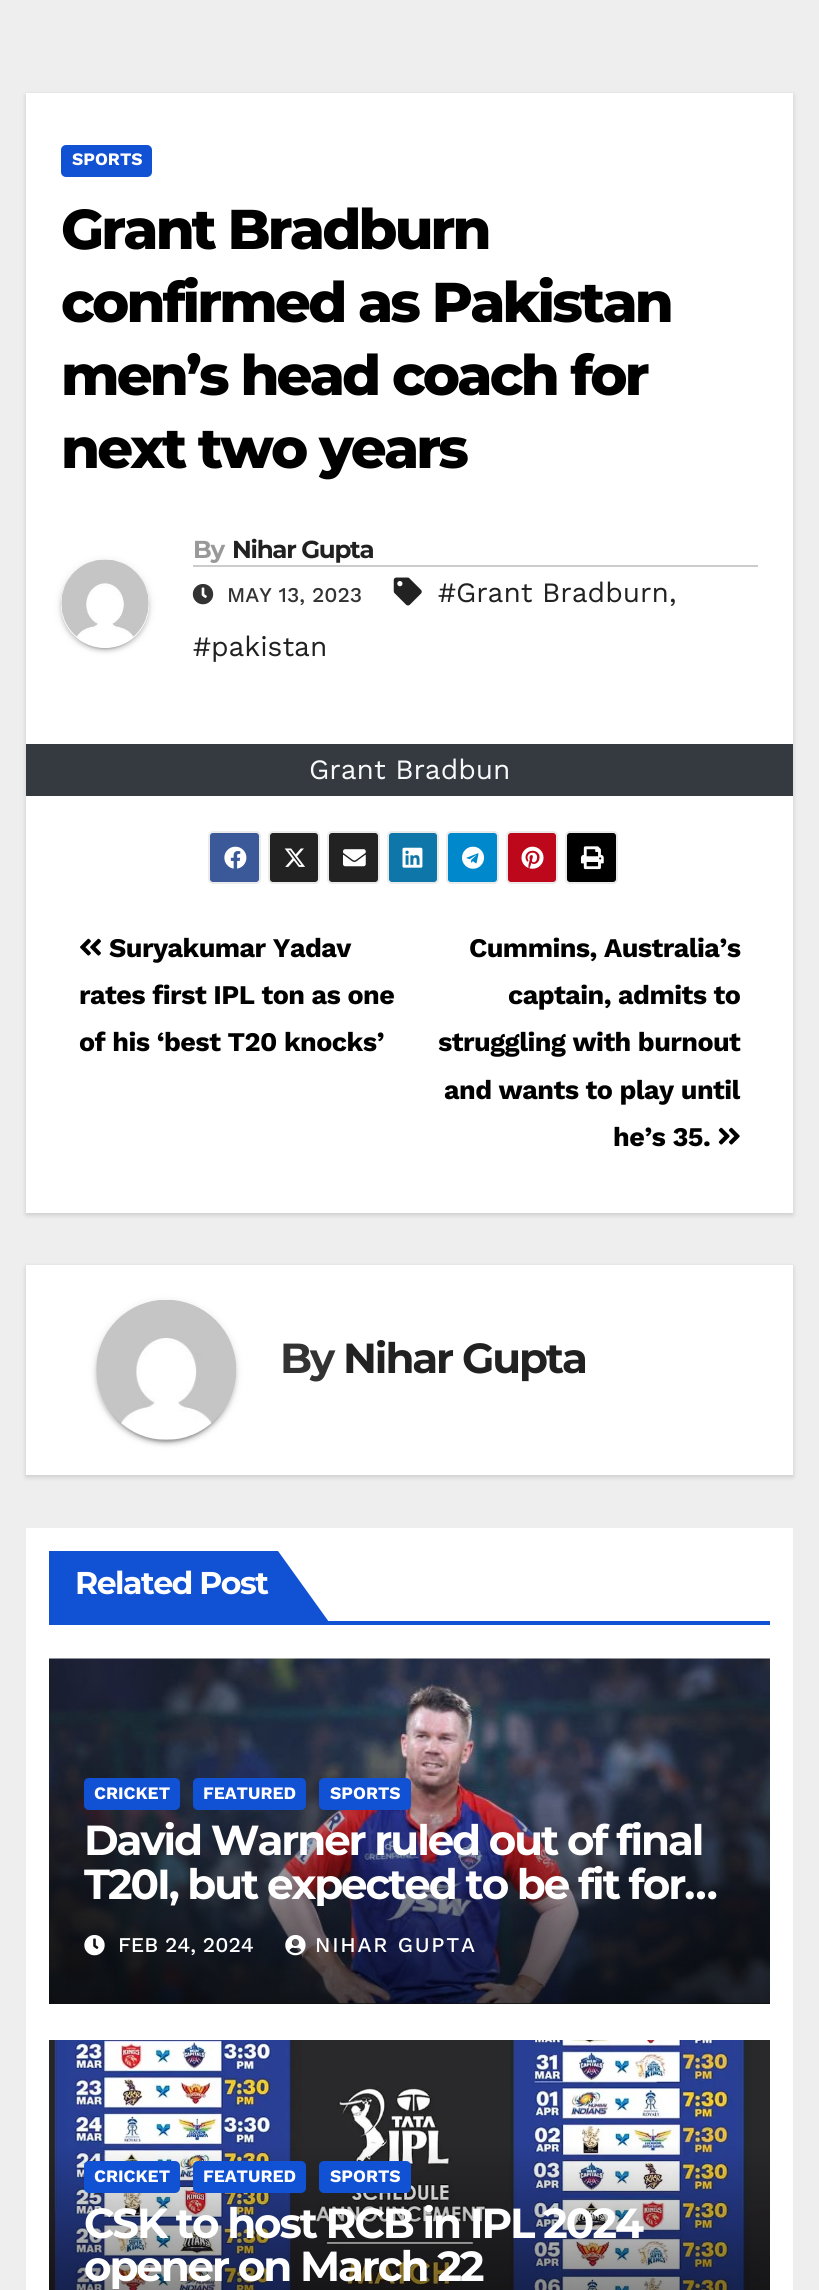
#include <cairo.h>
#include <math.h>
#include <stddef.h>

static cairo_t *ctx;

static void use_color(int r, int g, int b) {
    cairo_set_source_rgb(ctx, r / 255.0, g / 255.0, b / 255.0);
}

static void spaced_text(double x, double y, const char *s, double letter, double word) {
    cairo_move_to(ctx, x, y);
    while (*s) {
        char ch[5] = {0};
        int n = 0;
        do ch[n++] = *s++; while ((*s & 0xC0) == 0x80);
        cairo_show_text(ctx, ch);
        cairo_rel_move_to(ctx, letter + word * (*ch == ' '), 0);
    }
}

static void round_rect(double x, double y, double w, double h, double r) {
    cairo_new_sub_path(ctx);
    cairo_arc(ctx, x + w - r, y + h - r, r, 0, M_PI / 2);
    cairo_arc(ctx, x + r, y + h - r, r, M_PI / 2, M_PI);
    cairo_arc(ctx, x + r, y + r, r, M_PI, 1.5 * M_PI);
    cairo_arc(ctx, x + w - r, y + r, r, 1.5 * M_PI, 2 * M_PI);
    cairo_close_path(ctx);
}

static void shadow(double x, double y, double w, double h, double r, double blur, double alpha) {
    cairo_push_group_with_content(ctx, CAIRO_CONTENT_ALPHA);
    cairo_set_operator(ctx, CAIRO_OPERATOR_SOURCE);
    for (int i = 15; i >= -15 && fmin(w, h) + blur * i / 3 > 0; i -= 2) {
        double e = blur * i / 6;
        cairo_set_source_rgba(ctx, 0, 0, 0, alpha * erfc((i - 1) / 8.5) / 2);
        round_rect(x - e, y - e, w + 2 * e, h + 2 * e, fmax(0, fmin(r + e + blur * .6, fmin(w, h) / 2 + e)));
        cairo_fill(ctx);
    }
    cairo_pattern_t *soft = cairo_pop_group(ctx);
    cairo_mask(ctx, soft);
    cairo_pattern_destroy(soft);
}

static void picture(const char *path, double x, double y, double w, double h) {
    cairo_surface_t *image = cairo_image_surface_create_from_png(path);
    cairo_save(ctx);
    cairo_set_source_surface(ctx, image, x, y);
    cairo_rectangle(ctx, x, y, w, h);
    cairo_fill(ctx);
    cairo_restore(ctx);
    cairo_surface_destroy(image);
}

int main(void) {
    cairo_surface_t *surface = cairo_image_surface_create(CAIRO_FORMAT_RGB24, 819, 2290);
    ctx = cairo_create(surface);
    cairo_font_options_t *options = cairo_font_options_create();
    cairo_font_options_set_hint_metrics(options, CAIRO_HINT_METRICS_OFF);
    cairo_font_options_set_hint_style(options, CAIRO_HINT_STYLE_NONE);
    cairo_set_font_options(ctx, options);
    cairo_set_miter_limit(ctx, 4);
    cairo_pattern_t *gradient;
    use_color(238, 238, 238);
    cairo_paint(ctx);
    use_color(0, 0, 0);
    shadow(26, 95, 767, 1120, 0, 2.5, 0.15);
    use_color(255, 255, 255);
    cairo_rectangle(ctx, 26, 93, 767, 1120);
    cairo_fill(ctx);
    use_color(17, 81, 211);
    round_rect(61, 145, 91, 32, 5);
    cairo_fill(ctx);
    cairo_select_font_face(ctx, "Work Sans", CAIRO_FONT_SLANT_NORMAL, CAIRO_FONT_WEIGHT_BOLD);
    cairo_set_font_size(ctx, 17.5);
    use_color(255, 255, 255);
    cairo_move_to(ctx, 72, 165);
    cairo_show_text(ctx, "SPORTS");
    cairo_select_font_face(ctx, "Montserrat ExtraBold", CAIRO_FONT_SLANT_NORMAL, CAIRO_FONT_WEIGHT_NORMAL);
    cairo_set_font_size(ctx, 56);
    use_color(0, 0, 0);
    spaced_text(61, 249, "Grant Bradburn", -2.8, 0);
    spaced_text(61, 322, "confirmed as Pakistan", -2.8, 0);
    spaced_text(61, 395, "men’s head coach for", -2.8, 0);
    spaced_text(61, 468, "next two years", -2.8, 0);
    cairo_save(ctx);
    cairo_set_fill_rule(ctx, CAIRO_FILL_RULE_EVEN_ODD);
    cairo_new_path(ctx);
    cairo_move_to(ctx, 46, 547);
    cairo_line_to(ctx, 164, 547);
    cairo_line_to(ctx, 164, 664);
    cairo_line_to(ctx, 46, 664);
    cairo_close_path(ctx);
    cairo_move_to(ctx, 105, 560);
    cairo_curve_to(ctx, 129.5, 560, 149, 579.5, 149, 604);
    cairo_curve_to(ctx, 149, 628.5, 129.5, 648, 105, 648);
    cairo_curve_to(ctx, 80.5, 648, 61, 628.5, 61, 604);
    cairo_curve_to(ctx, 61, 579.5, 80.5, 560, 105, 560);
    cairo_close_path(ctx);
    cairo_clip(ctx);
    use_color(0, 0, 0);
    shadow(61, 562, 88, 87, 43.5, 4.5, 0.12);
    cairo_restore(ctx);
    cairo_save(ctx);
    cairo_set_fill_rule(ctx, CAIRO_FILL_RULE_EVEN_ODD);
    cairo_new_path(ctx);
    cairo_move_to(ctx, 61, 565);
    cairo_line_to(ctx, 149, 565);
    cairo_line_to(ctx, 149, 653);
    cairo_line_to(ctx, 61, 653);
    cairo_close_path(ctx);
    cairo_move_to(ctx, 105, 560);
    cairo_curve_to(ctx, 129.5, 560, 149, 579.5, 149, 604);
    cairo_curve_to(ctx, 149, 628.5, 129.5, 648, 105, 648);
    cairo_curve_to(ctx, 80.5, 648, 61, 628.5, 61, 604);
    cairo_curve_to(ctx, 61, 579.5, 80.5, 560, 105, 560);
    cairo_close_path(ctx);
    cairo_clip(ctx);
    use_color(0, 0, 0);
    shadow(65, 569, 80, 80, 40, 1, 0.2);
    cairo_restore(ctx);
    cairo_save(ctx);
    cairo_set_fill_rule(ctx, CAIRO_FILL_RULE_EVEN_ODD);
    cairo_new_path(ctx);
    cairo_move_to(ctx, 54, 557);
    cairo_line_to(ctx, 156, 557);
    cairo_line_to(ctx, 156, 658);
    cairo_line_to(ctx, 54, 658);
    cairo_close_path(ctx);
    cairo_move_to(ctx, 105, 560);
    cairo_curve_to(ctx, 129.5, 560, 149, 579.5, 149, 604);
    cairo_curve_to(ctx, 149, 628.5, 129.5, 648, 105, 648);
    cairo_curve_to(ctx, 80.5, 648, 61, 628.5, 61, 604);
    cairo_curve_to(ctx, 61, 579.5, 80.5, 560, 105, 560);
    cairo_close_path(ctx);
    cairo_clip(ctx);
    use_color(0, 0, 0);
    shadow(61, 564, 88, 87, 43.5, 2, 0.14);
    cairo_restore(ctx);
    picture("img1.png", 61, 559, 88, 86);
    use_color(204, 204, 204);
    cairo_rectangle(ctx, 193, 565, 565, 2);
    cairo_fill(ctx);
    cairo_select_font_face(ctx, "Montserrat", CAIRO_FONT_SLANT_NORMAL, CAIRO_FONT_WEIGHT_BOLD);
    cairo_set_font_size(ctx, 24.5);
    use_color(153, 153, 153);
    spaced_text(193, 558, "By", -1.25, 0);
    use_color(33, 33, 33);
    spaced_text(232, 558, "Nihar Gupta", -1.25, 0);
    picture("img2.png", 393, 577, 29, 29);
    cairo_select_font_face(ctx, "Work Sans", CAIRO_FONT_SLANT_NORMAL, CAIRO_FONT_WEIGHT_NORMAL);
    cairo_set_font_size(ctx, 28);
    cairo_move_to(ctx, 438, 602);
    cairo_show_text(ctx, "#Grant Bradburn");
    cairo_move_to(ctx, 669, 602);
    cairo_show_text(ctx, ",");
    cairo_move_to(ctx, 193, 656);
    cairo_show_text(ctx, "#pakistan");
    picture("img3.png", 192, 584, 22, 21);
    cairo_select_font_face(ctx, "Work Sans Medium", CAIRO_FONT_SLANT_NORMAL, CAIRO_FONT_WEIGHT_NORMAL);
    cairo_set_font_size(ctx, 21);
    use_color(51, 51, 51);
    cairo_move_to(ctx, 227, 602);
    cairo_show_text(ctx, "MAY 13, 2023");
    use_color(52, 58, 64);
    cairo_rectangle(ctx, 26, 744, 767, 52);
    cairo_fill(ctx);
    cairo_select_font_face(ctx, "Work Sans", CAIRO_FONT_SLANT_NORMAL, CAIRO_FONT_WEIGHT_NORMAL);
    cairo_set_font_size(ctx, 28);
    use_color(248, 249, 250);
    cairo_move_to(ctx, 309, 779);
    cairo_show_text(ctx, "Grant Bradbun");
    use_color(59, 89, 152);
    round_rect(209, 832, 51, 51, 4);
    cairo_fill_preserve(ctx);
    use_color(235, 235, 235);
    cairo_stroke(ctx);
    picture("img4.png", 224, 846, 23, 23);
    use_color(34, 34, 34);
    round_rect(269, 832, 50, 51, 4);
    cairo_fill_preserve(ctx);
    use_color(235, 235, 235);
    cairo_stroke(ctx);
    picture("img5.png", 284, 848, 21, 19);
    use_color(34, 34, 34);
    round_rect(328, 832, 51, 51, 4);
    cairo_fill_preserve(ctx);
    use_color(235, 235, 235);
    cairo_stroke(ctx);
    picture("img6.png", 343, 849, 23, 18);
    use_color(14, 118, 168);
    round_rect(388, 832, 50, 51, 4);
    cairo_fill_preserve(ctx);
    use_color(235, 235, 235);
    cairo_stroke(ctx);
    picture("img7.png", 402, 847, 21, 21);
    use_color(0, 136, 204);
    round_rect(447, 832, 51, 51, 4);
    cairo_fill_preserve(ctx);
    use_color(235, 235, 235);
    cairo_stroke(ctx);
    picture("img8.png", 462, 846, 22, 23);
    use_color(189, 8, 28);
    round_rect(507, 832, 50, 51, 4);
    cairo_fill_preserve(ctx);
    use_color(235, 235, 235);
    cairo_stroke(ctx);
    picture("img9.png", 521, 846, 23, 23);
    use_color(0, 0, 0);
    round_rect(566, 832, 51, 51, 4);
    cairo_fill_preserve(ctx);
    use_color(235, 235, 235);
    cairo_stroke(ctx);
    picture("img10.png", 581, 846, 23, 24);
    picture("img11.png", 80, 938, 21, 18);
    cairo_select_font_face(ctx, "Work Sans", CAIRO_FONT_SLANT_NORMAL, CAIRO_FONT_WEIGHT_BOLD);
    cairo_set_font_size(ctx, 26.9);
    use_color(0, 0, 0);
    spaced_text(109, 957, "Suryakumar Yadav", -0.55, 0);
    spaced_text(79, 1004, "rates first IPL ton as one", -0.55, 0);
    spaced_text(79, 1051, "of his ‘best T20 knocks’", -0.55, 0);
    spaced_text(469, 957, "Cummins, Australia’s", -0.55, 0);
    spaced_text(508, 1004, "captain, admits to", -0.55, 0);
    spaced_text(438, 1051, "struggling with burnout", -0.55, 0);
    spaced_text(444, 1099, "and wants to play until", -0.55, 0);
    spaced_text(613, 1146, "he’s 35.", -0.55, 0);
    picture("img12.png", 718, 1127, 22, 18);
    use_color(0, 0, 0);
    shadow(26, 1267, 767, 210, 0, 2.5, 0.15);
    use_color(255, 255, 255);
    cairo_rectangle(ctx, 26, 1265, 767, 210);
    cairo_fill(ctx);
    use_color(0, 0, 0);
    shadow(96, 1302, 140, 140, 70, 4.5, 0.12);
    shadow(100, 1309, 133, 133, 66.5, 1, 0.2);
    shadow(96, 1304, 140, 140, 70, 2, 0.14);
    picture("img13.png", 96, 1300, 140, 140);
    cairo_select_font_face(ctx, "Montserrat", CAIRO_FONT_SLANT_NORMAL, CAIRO_FONT_WEIGHT_BOLD);
    cairo_set_font_size(ctx, 42);
    use_color(51, 51, 51);
    spaced_text(280, 1373, "By", -2.1, 0);
    use_color(33, 33, 33);
    spaced_text(343, 1373, "Nihar Gupta", -2.1, 0);
    use_color(255, 255, 255);
    cairo_rectangle(ctx, 26, 1528, 767, 762);
    cairo_fill(ctx);
    use_color(17, 81, 211);
    cairo_rectangle(ctx, 49, 1621, 721, 4);
    cairo_fill(ctx);
    cairo_rectangle(ctx, 49, 1551, 228, 70);
    cairo_fill(ctx);
    cairo_set_font_size(ctx, 31.5);
    use_color(255, 255, 255);
    spaced_text(75, 1594, "Related Post", -1.5, 0);
    use_color(17, 81, 211);
    cairo_new_path(ctx);
    cairo_move_to(ctx, 277, 1551);
    cairo_line_to(ctx, 277, 1622);
    cairo_line_to(ctx, 329, 1622);
    cairo_line_to(ctx, 278, 1551);
    cairo_close_path(ctx);
    cairo_fill(ctx);
    use_color(51, 51, 51);
    cairo_rectangle(ctx, 49, 2003, 721, 1);
    cairo_fill(ctx);
    picture("img14.png", 49, 1658, 721, 346);
    gradient = cairo_pattern_create_linear(410, 1761, 410, 2004);
    cairo_pattern_add_color_stop_rgba(gradient, 0, 0, 0, 0, 0);
    cairo_pattern_add_color_stop_rgba(gradient, 0.5, 0, 0, 0, 0.4);
    cairo_pattern_add_color_stop_rgba(gradient, 1, 0, 0, 0, 0.7);
    cairo_set_source(ctx, gradient);
    cairo_pattern_destroy(gradient);
    cairo_rectangle(ctx, 49, 1768, 721, 236);
    cairo_fill(ctx);
    use_color(17, 81, 211);
    round_rect(84, 1778, 96, 32, 5);
    cairo_fill(ctx);
    cairo_select_font_face(ctx, "Work Sans", CAIRO_FONT_SLANT_NORMAL, CAIRO_FONT_WEIGHT_BOLD);
    cairo_set_font_size(ctx, 17.5);
    use_color(255, 255, 255);
    cairo_move_to(ctx, 94, 1799);
    cairo_show_text(ctx, "CRICKET");
    use_color(17, 81, 211);
    round_rect(193, 1778, 113, 32, 5);
    cairo_fill(ctx);
    use_color(255, 255, 255);
    cairo_move_to(ctx, 203, 1799);
    cairo_show_text(ctx, "FEATURED");
    use_color(17, 81, 211);
    round_rect(319, 1778, 92, 32, 5);
    cairo_fill(ctx);
    use_color(255, 255, 255);
    cairo_move_to(ctx, 330, 1799);
    cairo_show_text(ctx, "SPORTS");
    cairo_select_font_face(ctx, "Montserrat", CAIRO_FONT_SLANT_NORMAL, CAIRO_FONT_WEIGHT_BOLD);
    cairo_set_font_size(ctx, 42);
    spaced_text(84, 1855, "David Warner ruled out of final", -2.1, 0);
    cairo_save(ctx);
    cairo_rectangle(ctx, 84, 1818, 651, 88);
    cairo_clip(ctx);
    spaced_text(84, 1899, "T20I, but expected to be fit for…", -2.1, 0);
    cairo_restore(ctx);
    picture("img15.png", 84, 1935, 21, 21);
    cairo_select_font_face(ctx, "Work Sans Medium", CAIRO_FONT_SLANT_NORMAL, CAIRO_FONT_WEIGHT_NORMAL);
    cairo_set_font_size(ctx, 21);
    cairo_move_to(ctx, 118, 1952);
    cairo_show_text(ctx, "FEB 24, 2024");
    picture("img16.png", 285, 1935, 21, 21);
    spaced_text(315, 1952, "NIHAR GUPTA", 1.75, 0);
    picture("img17.png", 49, 2040, 721, 250);
    use_color(17, 81, 211);
    round_rect(84, 2161, 96, 32, 5);
    cairo_fill(ctx);
    cairo_select_font_face(ctx, "Work Sans", CAIRO_FONT_SLANT_NORMAL, CAIRO_FONT_WEIGHT_BOLD);
    cairo_set_font_size(ctx, 17.5);
    use_color(255, 255, 255);
    cairo_move_to(ctx, 94, 2182);
    cairo_show_text(ctx, "CRICKET");
    use_color(17, 81, 211);
    round_rect(193, 2161, 113, 32, 5);
    cairo_fill(ctx);
    use_color(255, 255, 255);
    cairo_move_to(ctx, 203, 2182);
    cairo_show_text(ctx, "FEATURED");
    use_color(17, 81, 211);
    round_rect(319, 2161, 92, 32, 5);
    cairo_fill(ctx);
    use_color(255, 255, 255);
    cairo_move_to(ctx, 330, 2182);
    cairo_show_text(ctx, "SPORTS");
    cairo_select_font_face(ctx, "Montserrat", CAIRO_FONT_SLANT_NORMAL, CAIRO_FONT_WEIGHT_BOLD);
    cairo_set_font_size(ctx, 42);
    spaced_text(84, 2238, "CSK to host RCB in IPL 2024", -2.1, 0);
    cairo_save(ctx);
    cairo_rectangle(ctx, 84, 2202, 651, 87);
    cairo_clip(ctx);
    spaced_text(84, 2281, "opener on March 22", -2.1, 0);
    cairo_restore(ctx);
    cairo_surface_write_to_png(surface, "result.png");
    cairo_font_options_destroy(options);
    cairo_destroy(ctx);
    cairo_surface_destroy(surface);
    return 0;
}
